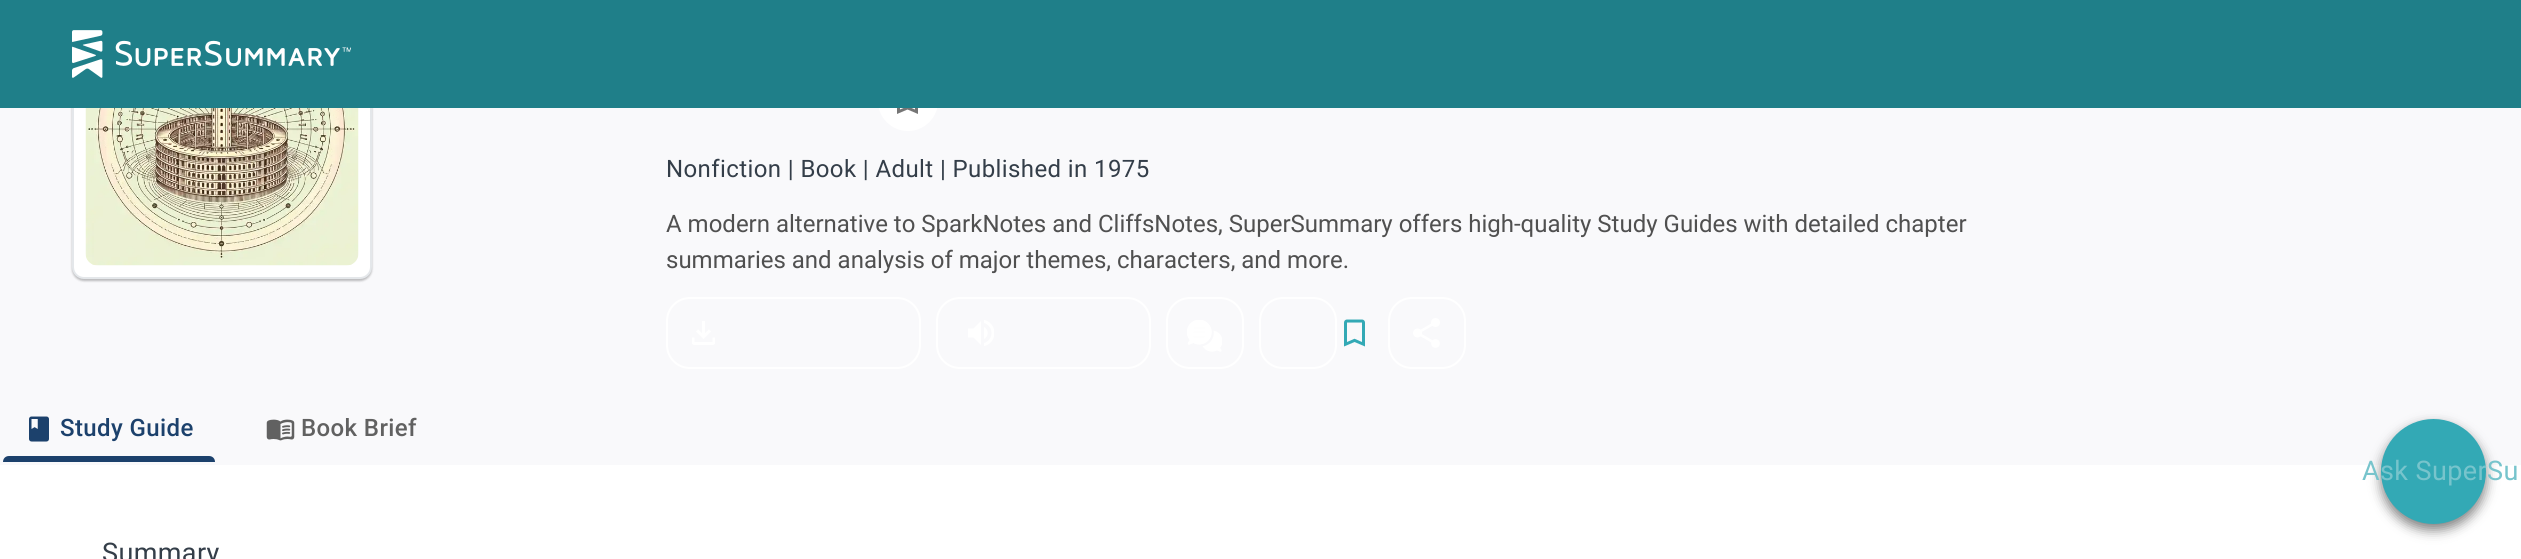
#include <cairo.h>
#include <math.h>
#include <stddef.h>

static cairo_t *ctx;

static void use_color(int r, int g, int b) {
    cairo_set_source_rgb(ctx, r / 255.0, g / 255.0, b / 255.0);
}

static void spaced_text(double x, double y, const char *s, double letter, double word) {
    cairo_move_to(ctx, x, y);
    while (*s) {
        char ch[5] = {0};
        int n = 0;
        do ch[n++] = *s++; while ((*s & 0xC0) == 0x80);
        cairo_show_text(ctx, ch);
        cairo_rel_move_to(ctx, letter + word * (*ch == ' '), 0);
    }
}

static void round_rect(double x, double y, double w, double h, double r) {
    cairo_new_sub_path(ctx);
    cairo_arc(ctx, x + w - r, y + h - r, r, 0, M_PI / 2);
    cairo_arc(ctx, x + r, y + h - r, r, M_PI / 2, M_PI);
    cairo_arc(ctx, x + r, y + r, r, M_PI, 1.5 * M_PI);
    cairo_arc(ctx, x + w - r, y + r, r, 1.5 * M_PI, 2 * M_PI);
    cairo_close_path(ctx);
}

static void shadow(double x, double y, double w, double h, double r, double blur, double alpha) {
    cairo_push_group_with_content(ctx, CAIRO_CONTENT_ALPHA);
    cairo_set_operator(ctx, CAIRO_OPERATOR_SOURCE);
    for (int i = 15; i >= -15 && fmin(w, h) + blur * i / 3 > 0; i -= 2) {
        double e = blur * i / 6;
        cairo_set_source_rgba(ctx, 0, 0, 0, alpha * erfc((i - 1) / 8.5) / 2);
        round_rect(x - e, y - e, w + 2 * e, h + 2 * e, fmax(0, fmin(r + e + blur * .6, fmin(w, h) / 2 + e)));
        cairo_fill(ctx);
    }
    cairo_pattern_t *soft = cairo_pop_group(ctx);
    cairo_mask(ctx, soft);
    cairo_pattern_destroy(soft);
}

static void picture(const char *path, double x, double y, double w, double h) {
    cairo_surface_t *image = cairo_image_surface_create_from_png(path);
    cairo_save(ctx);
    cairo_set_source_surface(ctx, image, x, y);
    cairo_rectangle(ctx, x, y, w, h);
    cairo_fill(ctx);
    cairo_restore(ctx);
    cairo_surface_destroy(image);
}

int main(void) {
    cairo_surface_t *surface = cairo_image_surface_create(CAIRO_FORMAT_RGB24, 2521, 559);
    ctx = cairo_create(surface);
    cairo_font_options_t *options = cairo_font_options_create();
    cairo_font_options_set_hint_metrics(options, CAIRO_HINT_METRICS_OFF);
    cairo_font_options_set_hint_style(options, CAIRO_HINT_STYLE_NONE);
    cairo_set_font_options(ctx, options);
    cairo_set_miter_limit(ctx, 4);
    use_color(249, 249, 251);
    cairo_paint(ctx);
    use_color(0, 0, 0);
    shadow(72, -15, 300, 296, 12, 1, 0.25);
    use_color(255, 255, 255);
    round_rect(73, -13, 298, 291, 11);
    cairo_fill_preserve(ctx);
    use_color(228, 231, 234);
    cairo_stroke(ctx);
    use_color(255, 255, 255);
    cairo_arc(ctx, 908, 101, 30, 0, 2 * M_PI);
    cairo_fill(ctx);
    use_color(31, 127, 137);
    cairo_rectangle(ctx, 0, 0, 2521, 108);
    cairo_fill(ctx);
    picture("img1.png", 72, 30, 279, 48);
    picture("img2.png", 85, 108, 274, 158);
    picture("img3.png", 897, 108, 21, 6);
    cairo_select_font_face(ctx, "Roboto", CAIRO_FONT_SLANT_NORMAL, CAIRO_FONT_WEIGHT_NORMAL);
    cairo_set_font_size(ctx, 24);
    use_color(52, 62, 73);
    spaced_text(666, 177, "Nonfiction | Book | Adult | Published in 1975", 0.4, 0);
    use_color(80, 80, 80);
    cairo_move_to(ctx, 666, 232);
    cairo_show_text(ctx, "A modern alternative to SparkNotes and CliffsNotes, SuperSummary offers high-quality Study Guides with detailed chapter");
    cairo_move_to(ctx, 666, 268);
    cairo_show_text(ctx, "summaries and analysis of major themes, characters, and more.");
    round_rect(667, 298, 253, 70, 23);
    use_color(255, 255, 255);
    cairo_stroke(ctx);
    picture("img4.png", 692, 321, 23, 24);
    round_rect(937, 298, 213, 70, 23);
    cairo_stroke(ctx);
    picture("img5.png", 968, 320, 26, 26);
    round_rect(1167, 298, 76, 70, 23);
    cairo_stroke(ctx);
    picture("img6.png", 1187, 320, 35, 32);
    round_rect(1260, 298, 76, 70, 23);
    cairo_stroke(ctx);
    picture("img7.png", 1344, 319, 21, 28);
    round_rect(1389, 298, 76, 70, 23);
    cairo_stroke(ctx);
    picture("img8.png", 1413, 318, 27, 30);
    picture("img9.png", 29, 416, 20, 26);
    cairo_select_font_face(ctx, "Roboto Medium", CAIRO_FONT_SLANT_NORMAL, CAIRO_FONT_WEIGHT_NORMAL);
    use_color(28, 65, 108);
    spaced_text(60, 436, "Study Guide", 0.4, 0);
    cairo_new_path(ctx);
    cairo_move_to(ctx, 9, 456);
    cairo_line_to(ctx, 209, 456);
    cairo_curve_to(ctx, 212.5, 456, 215, 458.5, 215, 462);
    cairo_line_to(ctx, 3, 462);
    cairo_curve_to(ctx, 3, 458.5, 5.5, 456, 9, 456);
    cairo_close_path(ctx);
    cairo_fill(ctx);
    picture("img10.png", 266, 419, 29, 22);
    use_color(97, 97, 97);
    spaced_text(301, 436, "Book Brief", 0.4, 0);
    use_color(255, 255, 255);
    cairo_rectangle(ctx, 0, 465, 2521, 94);
    cairo_fill(ctx);
    cairo_select_font_face(ctx, "Roboto", CAIRO_FONT_SLANT_NORMAL, CAIRO_FONT_WEIGHT_NORMAL);
    cairo_set_font_size(ctx, 27);
    use_color(52, 62, 73);
    spaced_text(102, 562, "Summary", 0.4, 0);
    use_color(0, 0, 0);
    shadow(2381, 425, 105, 105, 52.5, 6, 0.5);
    use_color(51, 169, 181);
    cairo_arc(ctx, 2433.5, 471.5, 52.5, 0, 2 * M_PI);
    cairo_fill(ctx);
    use_color(119, 196, 204);
    spaced_text(2362, 480, "Ask SuperSu", 0.4, 0);
    cairo_surface_write_to_png(surface, "result.png");
    cairo_font_options_destroy(options);
    cairo_destroy(ctx);
    cairo_surface_destroy(surface);
    return 0;
}
